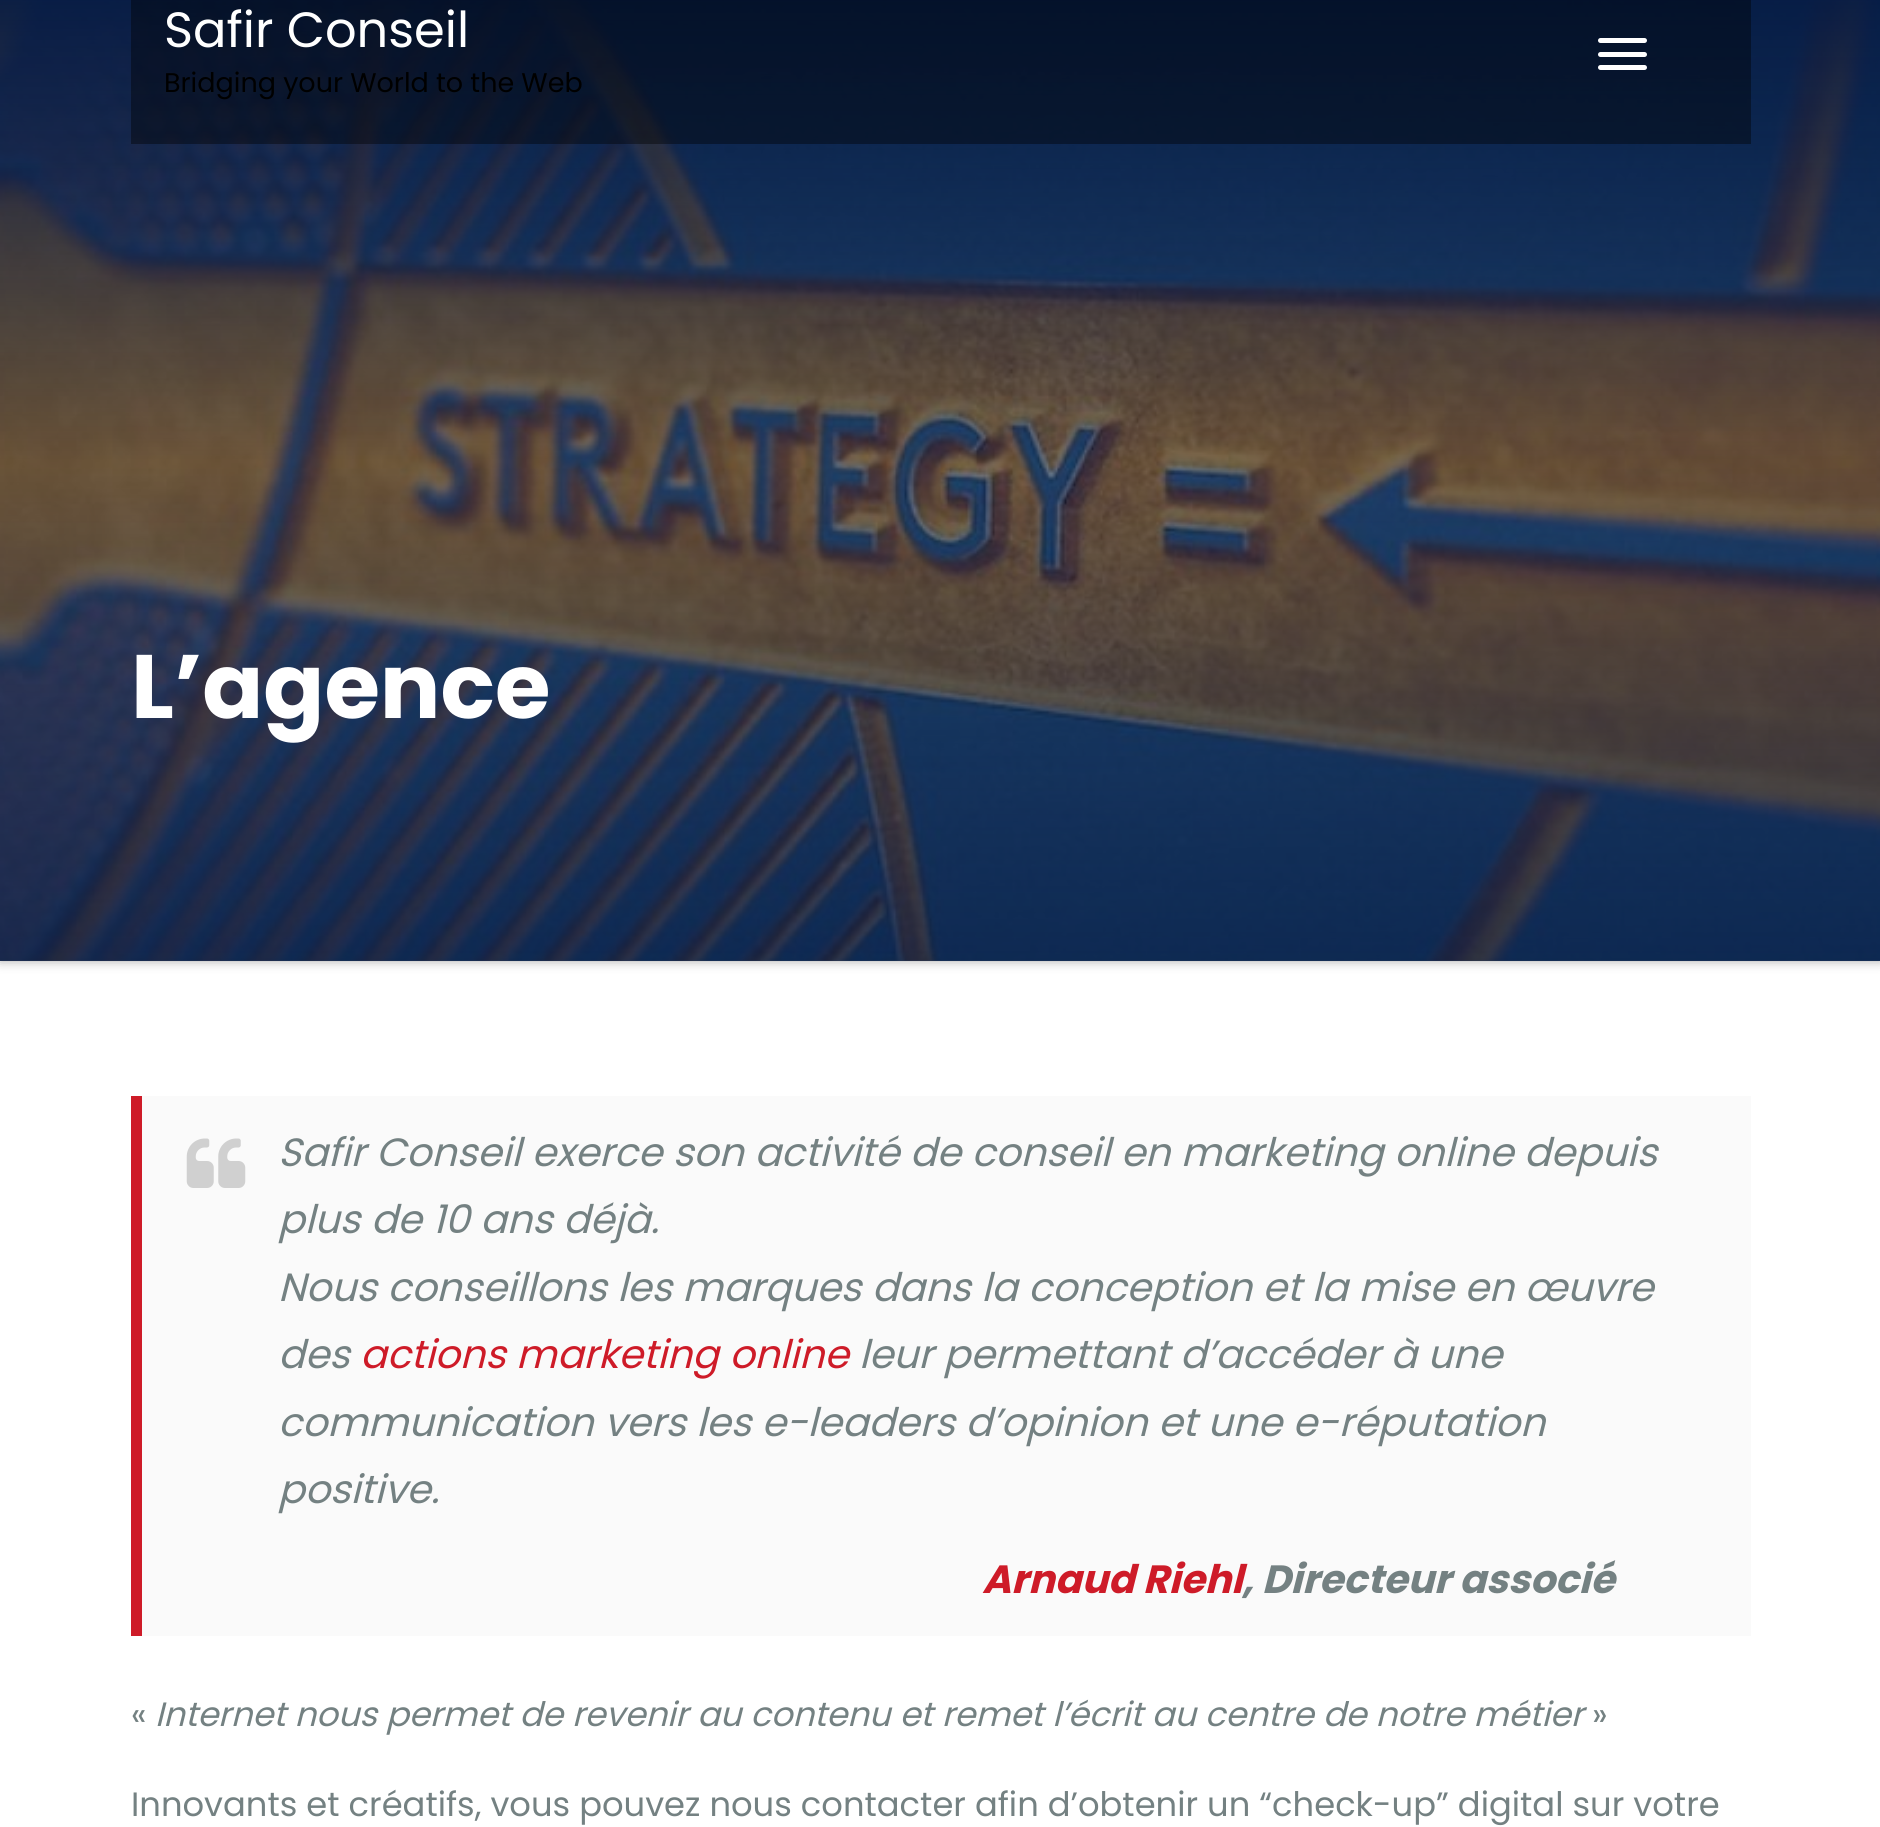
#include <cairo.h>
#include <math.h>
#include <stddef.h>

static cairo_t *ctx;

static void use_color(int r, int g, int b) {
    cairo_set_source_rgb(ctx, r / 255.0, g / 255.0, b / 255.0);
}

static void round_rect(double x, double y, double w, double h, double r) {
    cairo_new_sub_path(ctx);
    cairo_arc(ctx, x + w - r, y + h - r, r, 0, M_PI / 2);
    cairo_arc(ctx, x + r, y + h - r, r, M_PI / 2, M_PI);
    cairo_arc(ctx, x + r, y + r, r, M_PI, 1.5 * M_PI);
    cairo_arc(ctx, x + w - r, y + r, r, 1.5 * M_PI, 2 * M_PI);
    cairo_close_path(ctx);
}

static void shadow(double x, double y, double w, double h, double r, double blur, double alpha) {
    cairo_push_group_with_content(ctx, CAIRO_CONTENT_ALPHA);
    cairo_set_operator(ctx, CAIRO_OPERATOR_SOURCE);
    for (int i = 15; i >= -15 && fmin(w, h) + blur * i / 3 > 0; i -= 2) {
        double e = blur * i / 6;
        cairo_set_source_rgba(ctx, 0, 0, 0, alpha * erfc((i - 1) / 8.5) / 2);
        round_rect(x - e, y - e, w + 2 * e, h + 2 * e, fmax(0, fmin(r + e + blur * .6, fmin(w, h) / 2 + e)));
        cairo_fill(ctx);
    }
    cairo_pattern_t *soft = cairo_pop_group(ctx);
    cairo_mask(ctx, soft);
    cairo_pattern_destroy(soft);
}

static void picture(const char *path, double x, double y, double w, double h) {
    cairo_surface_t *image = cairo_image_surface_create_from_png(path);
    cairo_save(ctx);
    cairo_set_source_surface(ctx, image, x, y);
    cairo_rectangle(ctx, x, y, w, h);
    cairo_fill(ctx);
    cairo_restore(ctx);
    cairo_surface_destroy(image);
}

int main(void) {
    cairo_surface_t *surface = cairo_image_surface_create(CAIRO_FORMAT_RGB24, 1880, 1827);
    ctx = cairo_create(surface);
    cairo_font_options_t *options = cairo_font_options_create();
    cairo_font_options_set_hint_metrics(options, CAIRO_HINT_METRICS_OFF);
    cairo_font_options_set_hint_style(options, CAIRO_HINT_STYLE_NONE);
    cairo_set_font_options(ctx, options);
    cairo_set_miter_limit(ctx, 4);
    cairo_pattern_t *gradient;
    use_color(255, 255, 255);
    cairo_paint(ctx);
    use_color(170, 170, 170);
    shadow(0, -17, 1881, 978, 0, 5.5, 1);
    picture("img1.png", 0, 0, 1880, 961);
    gradient = cairo_pattern_create_linear(941, -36, 941, 961);
    cairo_pattern_add_color_stop_rgba(gradient, 0, 0.02, 0.106, 0.267, 1);
    cairo_pattern_add_color_stop_rgba(gradient, 0.5, 0.02, 0.106, 0.267, 0.5);
    cairo_pattern_add_color_stop_rgba(gradient, 1, 0.02, 0.106, 0.267, 0.8);
    cairo_set_source(ctx, gradient);
    cairo_pattern_destroy(gradient);
    cairo_rectangle(ctx, 0, 0, 1880, 961);
    cairo_fill(ctx);
    cairo_set_source_rgba(ctx, 0, 0, 0, 0.4);
    cairo_rectangle(ctx, 131, 0, 1620, 144);
    cairo_fill(ctx);
    cairo_select_font_face(ctx, "Poppins", CAIRO_FONT_SLANT_NORMAL, CAIRO_FONT_WEIGHT_NORMAL);
    cairo_set_font_size(ctx, 49.5);
    use_color(255, 255, 255);
    cairo_move_to(ctx, 164, 47);
    cairo_show_text(ctx, "Safir Conseil");
    cairo_set_font_size(ctx, 27);
    use_color(0, 0, 0);
    cairo_move_to(ctx, 164, 92);
    cairo_show_text(ctx, "Bridging your World to the Web");
    use_color(255, 255, 255);
    round_rect(1598, 38, 49, 5, 2.5);
    cairo_fill(ctx);
    round_rect(1598, 52, 49, 5, 2.5);
    cairo_fill(ctx);
    round_rect(1598, 65, 49, 5, 2.5);
    cairo_fill(ctx);
    cairo_select_font_face(ctx, "Poppins", CAIRO_FONT_SLANT_NORMAL, CAIRO_FONT_WEIGHT_BOLD);
    cairo_set_font_size(ctx, 90);
    cairo_move_to(ctx, 131, 718);
    cairo_show_text(ctx, "L’agence");
    use_color(250, 250, 250);
    cairo_rectangle(ctx, 142, 1096, 1609, 540);
    cairo_fill(ctx);
    use_color(206, 27, 40);
    cairo_rectangle(ctx, 131, 1096, 11, 540);
    cairo_fill(ctx);
    picture("img2.png", 186, 1138, 60, 50);
    cairo_select_font_face(ctx, "Poppins", CAIRO_FONT_SLANT_ITALIC, CAIRO_FONT_WEIGHT_NORMAL);
    cairo_set_font_size(ctx, 39.4);
    use_color(116, 129, 130);
    cairo_move_to(ctx, 278, 1166);
    cairo_show_text(ctx, "Safir Conseil exerce son activité de conseil en marketing online depuis");
    cairo_move_to(ctx, 278, 1233);
    cairo_show_text(ctx, "plus de 10 ans déjà.");
    cairo_move_to(ctx, 278, 1301);
    cairo_show_text(ctx, "Nous conseillons les marques dans la conception et la mise en œuvre");
    cairo_move_to(ctx, 278, 1368);
    cairo_show_text(ctx, "des");
    use_color(206, 27, 40);
    cairo_move_to(ctx, 360, 1368);
    cairo_show_text(ctx, "actions marketing online");
    use_color(116, 129, 130);
    cairo_move_to(ctx, 859, 1368);
    cairo_show_text(ctx, "leur permettant d’accéder à une");
    cairo_move_to(ctx, 278, 1436);
    cairo_show_text(ctx, "communication vers les e-leaders d’opinion et une e-réputation");
    cairo_move_to(ctx, 278, 1503);
    cairo_show_text(ctx, "positive.");
    cairo_select_font_face(ctx, "Poppins", CAIRO_FONT_SLANT_ITALIC, CAIRO_FONT_WEIGHT_BOLD);
    use_color(206, 27, 40);
    cairo_move_to(ctx, 982, 1593);
    cairo_show_text(ctx, "Arnaud Riehl");
    use_color(116, 129, 130);
    cairo_move_to(ctx, 1242, 1593);
    cairo_show_text(ctx, ", Directeur associé");
    cairo_select_font_face(ctx, "Poppins", CAIRO_FONT_SLANT_NORMAL, CAIRO_FONT_WEIGHT_NORMAL);
    cairo_set_font_size(ctx, 33.75);
    cairo_move_to(ctx, 131, 1726);
    cairo_show_text(ctx, "«");
    cairo_select_font_face(ctx, "Poppins", CAIRO_FONT_SLANT_ITALIC, CAIRO_FONT_WEIGHT_NORMAL);
    cairo_move_to(ctx, 155, 1726);
    cairo_show_text(ctx, "Internet nous permet de revenir au contenu et remet l’écrit au centre de notre métier");
    cairo_select_font_face(ctx, "Poppins", CAIRO_FONT_SLANT_NORMAL, CAIRO_FONT_WEIGHT_NORMAL);
    cairo_move_to(ctx, 1592, 1726);
    cairo_show_text(ctx, "»");
    cairo_move_to(ctx, 131, 1816);
    cairo_show_text(ctx, "Innovants et créatifs, vous pouvez nous contacter afin d’obtenir un “check-up” digital sur votre");
    cairo_surface_write_to_png(surface, "result.png");
    cairo_font_options_destroy(options);
    cairo_destroy(ctx);
    cairo_surface_destroy(surface);
    return 0;
}
